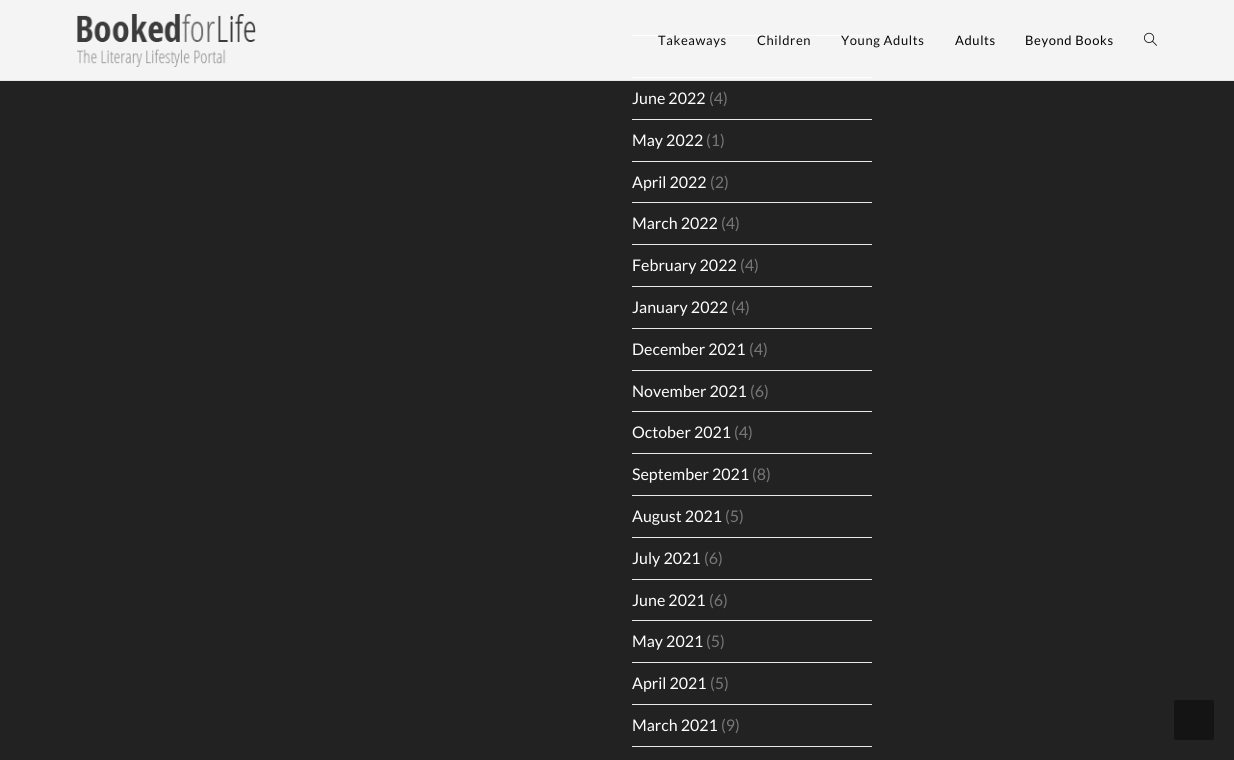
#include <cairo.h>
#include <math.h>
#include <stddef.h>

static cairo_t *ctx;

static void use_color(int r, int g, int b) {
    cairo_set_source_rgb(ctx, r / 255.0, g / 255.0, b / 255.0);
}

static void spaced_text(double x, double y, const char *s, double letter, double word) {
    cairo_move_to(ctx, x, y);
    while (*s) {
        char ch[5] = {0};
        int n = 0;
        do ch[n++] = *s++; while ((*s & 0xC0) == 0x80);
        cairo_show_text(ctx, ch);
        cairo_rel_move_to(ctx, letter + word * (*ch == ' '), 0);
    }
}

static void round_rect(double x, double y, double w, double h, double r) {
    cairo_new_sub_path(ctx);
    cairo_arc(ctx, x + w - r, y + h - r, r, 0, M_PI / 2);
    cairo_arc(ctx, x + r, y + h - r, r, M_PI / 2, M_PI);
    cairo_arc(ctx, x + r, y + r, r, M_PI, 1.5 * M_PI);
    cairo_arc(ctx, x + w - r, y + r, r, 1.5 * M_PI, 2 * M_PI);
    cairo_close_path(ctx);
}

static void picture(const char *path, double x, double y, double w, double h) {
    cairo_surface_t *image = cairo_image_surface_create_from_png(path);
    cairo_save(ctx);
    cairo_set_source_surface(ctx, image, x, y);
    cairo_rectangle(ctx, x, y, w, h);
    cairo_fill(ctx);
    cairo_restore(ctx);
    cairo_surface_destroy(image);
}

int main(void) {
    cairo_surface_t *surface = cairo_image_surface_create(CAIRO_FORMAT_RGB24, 1234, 760);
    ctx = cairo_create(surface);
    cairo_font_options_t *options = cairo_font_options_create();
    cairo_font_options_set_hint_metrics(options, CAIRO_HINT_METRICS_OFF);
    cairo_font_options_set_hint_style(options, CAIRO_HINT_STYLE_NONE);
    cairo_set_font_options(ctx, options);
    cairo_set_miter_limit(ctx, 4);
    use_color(34, 34, 34);
    cairo_paint(ctx);
    use_color(231, 231, 231);
    cairo_rectangle(ctx, 0, 80, 1234, 1);
    cairo_fill(ctx);
    use_color(244, 244, 244);
    cairo_rectangle(ctx, 0, 0, 1234, 80);
    cairo_fill(ctx);
    picture("img1.png", 77, 14, 179, 53);
    use_color(254, 254, 254);
    cairo_rectangle(ctx, 632, 35, 240, 1);
    cairo_fill(ctx);
    cairo_select_font_face(ctx, "Lato", CAIRO_FONT_SLANT_NORMAL, CAIRO_FONT_WEIGHT_NORMAL);
    cairo_set_font_size(ctx, 13);
    use_color(12, 12, 12);
    spaced_text(658, 45, "Takeaways", 0.6, 0);
    spaced_text(757, 45, "Children", 0.6, 0);
    spaced_text(841, 45, "Young Adults", 0.6, 0);
    use_color(2, 2, 2);
    spaced_text(955, 45, "Adults", 0.6, 0);
    spaced_text(1025, 45, "Beyond Books", 0.6, 0);
    picture("img2.png", 1144, 32, 13, 14);
    use_color(254, 254, 254);
    cairo_rectangle(ctx, 632, 77, 240, 1);
    cairo_fill(ctx);
    use_color(233, 233, 233);
    cairo_rectangle(ctx, 632, 119, 240, 1);
    cairo_fill(ctx);
    cairo_set_font_size(ctx, 16);
    use_color(255, 255, 255);
    cairo_move_to(ctx, 632, 104);
    cairo_show_text(ctx, "June 2022");
    use_color(119, 119, 119);
    cairo_move_to(ctx, 709, 104);
    cairo_show_text(ctx, "(4)");
    use_color(233, 233, 233);
    cairo_rectangle(ctx, 632, 161, 240, 1);
    cairo_fill(ctx);
    use_color(255, 255, 255);
    cairo_move_to(ctx, 632, 146);
    cairo_show_text(ctx, "May 2022");
    use_color(119, 119, 119);
    cairo_move_to(ctx, 706, 146);
    cairo_show_text(ctx, "(1)");
    use_color(233, 233, 233);
    cairo_rectangle(ctx, 632, 202, 240, 1);
    cairo_fill(ctx);
    use_color(255, 255, 255);
    cairo_move_to(ctx, 632, 188);
    cairo_show_text(ctx, "April 2022");
    use_color(119, 119, 119);
    cairo_move_to(ctx, 710, 188);
    cairo_show_text(ctx, "(2)");
    use_color(233, 233, 233);
    cairo_rectangle(ctx, 632, 244, 240, 1);
    cairo_fill(ctx);
    use_color(255, 255, 255);
    cairo_move_to(ctx, 632, 229);
    cairo_show_text(ctx, "March 2022");
    use_color(119, 119, 119);
    cairo_move_to(ctx, 721, 229);
    cairo_show_text(ctx, "(4)");
    use_color(233, 233, 233);
    cairo_rectangle(ctx, 632, 286, 240, 1);
    cairo_fill(ctx);
    use_color(255, 255, 255);
    cairo_move_to(ctx, 632, 271);
    cairo_show_text(ctx, "February 2022");
    use_color(119, 119, 119);
    cairo_move_to(ctx, 740, 271);
    cairo_show_text(ctx, "(4)");
    use_color(233, 233, 233);
    cairo_rectangle(ctx, 632, 328, 240, 1);
    cairo_fill(ctx);
    use_color(255, 255, 255);
    cairo_move_to(ctx, 632, 313);
    cairo_show_text(ctx, "January 2022");
    use_color(119, 119, 119);
    cairo_move_to(ctx, 731, 313);
    cairo_show_text(ctx, "(4)");
    use_color(233, 233, 233);
    cairo_rectangle(ctx, 632, 370, 240, 1);
    cairo_fill(ctx);
    use_color(255, 255, 255);
    cairo_move_to(ctx, 632, 355);
    cairo_show_text(ctx, "December 2021");
    use_color(119, 119, 119);
    cairo_move_to(ctx, 749, 355);
    cairo_show_text(ctx, "(4)");
    use_color(233, 233, 233);
    cairo_rectangle(ctx, 632, 411, 240, 1);
    cairo_fill(ctx);
    use_color(255, 255, 255);
    cairo_move_to(ctx, 632, 397);
    cairo_show_text(ctx, "November 2021");
    use_color(119, 119, 119);
    cairo_move_to(ctx, 750, 397);
    cairo_show_text(ctx, "(6)");
    use_color(233, 233, 233);
    cairo_rectangle(ctx, 632, 453, 240, 1);
    cairo_fill(ctx);
    use_color(255, 255, 255);
    cairo_move_to(ctx, 632, 438);
    cairo_show_text(ctx, "October 2021");
    use_color(119, 119, 119);
    cairo_move_to(ctx, 734, 438);
    cairo_show_text(ctx, "(4)");
    use_color(233, 233, 233);
    cairo_rectangle(ctx, 632, 495, 240, 1);
    cairo_fill(ctx);
    use_color(255, 255, 255);
    cairo_move_to(ctx, 632, 480);
    cairo_show_text(ctx, "September 2021");
    use_color(119, 119, 119);
    cairo_move_to(ctx, 752, 480);
    cairo_show_text(ctx, "(8)");
    use_color(233, 233, 233);
    cairo_rectangle(ctx, 632, 537, 240, 1);
    cairo_fill(ctx);
    use_color(255, 255, 255);
    cairo_move_to(ctx, 632, 522);
    cairo_show_text(ctx, "August 2021");
    use_color(119, 119, 119);
    cairo_move_to(ctx, 725, 522);
    cairo_show_text(ctx, "(5)");
    use_color(233, 233, 233);
    cairo_rectangle(ctx, 632, 579, 240, 1);
    cairo_fill(ctx);
    use_color(255, 255, 255);
    cairo_move_to(ctx, 632, 564);
    cairo_show_text(ctx, "July 2021");
    use_color(119, 119, 119);
    cairo_move_to(ctx, 704, 564);
    cairo_show_text(ctx, "(6)");
    use_color(233, 233, 233);
    cairo_rectangle(ctx, 632, 620, 240, 1);
    cairo_fill(ctx);
    use_color(255, 255, 255);
    cairo_move_to(ctx, 632, 606);
    cairo_show_text(ctx, "June 2021");
    use_color(119, 119, 119);
    cairo_move_to(ctx, 709, 606);
    cairo_show_text(ctx, "(6)");
    use_color(233, 233, 233);
    cairo_rectangle(ctx, 632, 662, 240, 1);
    cairo_fill(ctx);
    use_color(255, 255, 255);
    cairo_move_to(ctx, 632, 647);
    cairo_show_text(ctx, "May 2021");
    use_color(119, 119, 119);
    cairo_move_to(ctx, 706, 647);
    cairo_show_text(ctx, "(5)");
    use_color(233, 233, 233);
    cairo_rectangle(ctx, 632, 704, 240, 1);
    cairo_fill(ctx);
    use_color(255, 255, 255);
    cairo_move_to(ctx, 632, 689);
    cairo_show_text(ctx, "April 2021");
    use_color(119, 119, 119);
    cairo_move_to(ctx, 710, 689);
    cairo_show_text(ctx, "(5)");
    use_color(233, 233, 233);
    cairo_rectangle(ctx, 632, 746, 240, 1);
    cairo_fill(ctx);
    use_color(255, 255, 255);
    cairo_move_to(ctx, 632, 731);
    cairo_show_text(ctx, "March 2021");
    use_color(119, 119, 119);
    cairo_move_to(ctx, 721, 731);
    cairo_show_text(ctx, "(9)");
    use_color(20, 20, 20);
    round_rect(1174, 700, 40, 40, 2);
    cairo_fill(ctx);
    cairo_surface_write_to_png(surface, "result.png");
    cairo_font_options_destroy(options);
    cairo_destroy(ctx);
    cairo_surface_destroy(surface);
    return 0;
}
